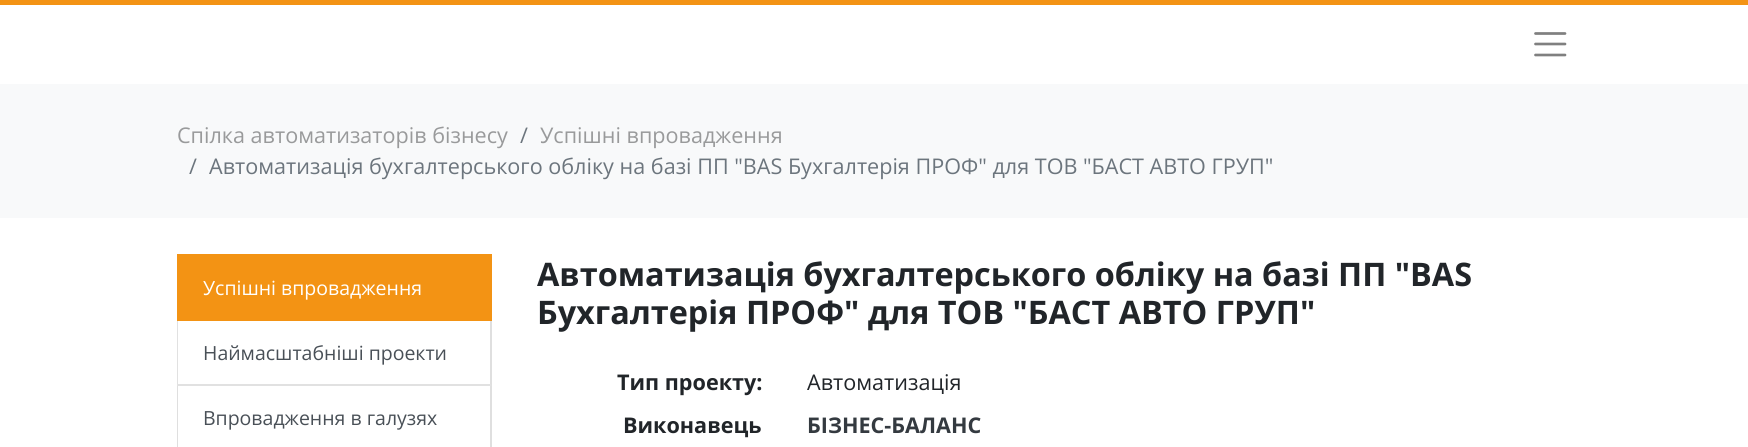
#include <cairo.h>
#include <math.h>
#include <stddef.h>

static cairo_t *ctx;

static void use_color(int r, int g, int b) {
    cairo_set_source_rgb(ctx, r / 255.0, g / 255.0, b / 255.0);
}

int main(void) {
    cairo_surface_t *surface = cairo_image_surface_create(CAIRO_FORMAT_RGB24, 1748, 447);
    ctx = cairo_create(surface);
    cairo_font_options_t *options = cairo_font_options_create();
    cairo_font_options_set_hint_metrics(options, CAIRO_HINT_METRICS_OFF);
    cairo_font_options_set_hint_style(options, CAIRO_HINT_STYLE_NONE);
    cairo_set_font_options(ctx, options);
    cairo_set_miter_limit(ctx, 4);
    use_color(255, 255, 255);
    cairo_paint(ctx);
    use_color(243, 147, 20);
    cairo_rectangle(ctx, 0, 0, 1748, 5);
    cairo_fill(ctx);
    cairo_new_path(ctx);
    cairo_move_to(ctx, 1535.5, 33.5);
    cairo_line_to(ctx, 1565, 33.5);
    cairo_move_to(ctx, 1535.5, 44);
    cairo_line_to(ctx, 1565, 44);
    cairo_move_to(ctx, 1535.5, 55);
    cairo_line_to(ctx, 1565, 55);
    use_color(128, 128, 128);
    cairo_set_line_width(ctx, 2.7);
    cairo_set_line_cap(ctx, CAIRO_LINE_CAP_ROUND);
    cairo_stroke(ctx);
    use_color(248, 249, 250);
    cairo_rectangle(ctx, 0, 84, 1748, 134);
    cairo_fill(ctx);
    cairo_select_font_face(ctx, "Open Sans", CAIRO_FONT_SLANT_NORMAL, CAIRO_FONT_WEIGHT_NORMAL);
    cairo_set_font_size(ctx, 21.6);
    use_color(153, 154, 155);
    cairo_move_to(ctx, 177, 143);
    cairo_show_text(ctx, "Спілка автоматизаторів бізнесу");
    use_color(108, 117, 125);
    cairo_move_to(ctx, 520, 143);
    cairo_show_text(ctx, "/");
    use_color(153, 154, 155);
    cairo_move_to(ctx, 540, 143);
    cairo_show_text(ctx, "Успішні впровадження");
    use_color(108, 117, 125);
    cairo_move_to(ctx, 189, 174);
    cairo_show_text(ctx, "/");
    cairo_move_to(ctx, 209, 174);
    cairo_show_text(ctx, "Автоматизація бухгалтерського обліку на базі ПП \"BAS Бухгалтерія ПРОФ\" для ТОВ \"БАСТ АВТО ГРУП\"");
    use_color(243, 147, 20);
    cairo_rectangle(ctx, 177, 254, 315, 67);
    cairo_fill(ctx);
    cairo_set_font_size(ctx, 19.5);
    use_color(255, 255, 255);
    cairo_move_to(ctx, 203, 295);
    cairo_show_text(ctx, "Успішні впровадження");
    use_color(223, 223, 223);
    cairo_new_path(ctx);
    cairo_move_to(ctx, 492, 321);
    cairo_line_to(ctx, 492, 386);
    cairo_line_to(ctx, 490, 384);
    cairo_line_to(ctx, 490, 321);
    cairo_close_path(ctx);
    cairo_fill(ctx);
    cairo_set_source_rgba(ctx, 0, 0, 0, 0.12);
    cairo_new_path(ctx);
    cairo_move_to(ctx, 492, 386);
    cairo_line_to(ctx, 177, 386);
    cairo_line_to(ctx, 178, 384);
    cairo_line_to(ctx, 490, 384);
    cairo_close_path(ctx);
    cairo_fill(ctx);
    cairo_new_path(ctx);
    cairo_move_to(ctx, 177, 386);
    cairo_line_to(ctx, 177, 321);
    cairo_line_to(ctx, 178, 321);
    cairo_line_to(ctx, 178, 384);
    cairo_close_path(ctx);
    cairo_fill(ctx);
    use_color(73, 80, 87);
    cairo_move_to(ctx, 203, 360);
    cairo_show_text(ctx, "Наймасштабніші проекти");
    use_color(223, 223, 223);
    cairo_new_path(ctx);
    cairo_move_to(ctx, 492, 386);
    cairo_line_to(ctx, 492, 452);
    cairo_line_to(ctx, 490, 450);
    cairo_line_to(ctx, 490, 386);
    cairo_close_path(ctx);
    cairo_fill(ctx);
    cairo_new_path(ctx);
    cairo_move_to(ctx, 177, 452);
    cairo_line_to(ctx, 177, 386);
    cairo_line_to(ctx, 178, 386);
    cairo_line_to(ctx, 178, 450);
    cairo_close_path(ctx);
    cairo_fill(ctx);
    use_color(73, 80, 87);
    cairo_move_to(ctx, 203, 425);
    cairo_show_text(ctx, "Впровадження в галузях");
    cairo_select_font_face(ctx, "Open Sans", CAIRO_FONT_SLANT_NORMAL, CAIRO_FONT_WEIGHT_BOLD);
    cairo_set_font_size(ctx, 32.4);
    use_color(33, 37, 41);
    cairo_move_to(ctx, 537, 286);
    cairo_show_text(ctx, "Автоматизація бухгалтерського обліку на базі ПП \"BAS");
    cairo_move_to(ctx, 537, 324);
    cairo_show_text(ctx, "Бухгалтерія ПРОФ\" для ТОВ \"БАСТ АВТО ГРУП\"");
    cairo_set_font_size(ctx, 21.6);
    cairo_move_to(ctx, 617, 390);
    cairo_show_text(ctx, "Тип проекту:");
    cairo_select_font_face(ctx, "Open Sans", CAIRO_FONT_SLANT_NORMAL, CAIRO_FONT_WEIGHT_NORMAL);
    cairo_move_to(ctx, 807, 390);
    cairo_show_text(ctx, "Автоматизація");
    cairo_select_font_face(ctx, "Open Sans", CAIRO_FONT_SLANT_NORMAL, CAIRO_FONT_WEIGHT_BOLD);
    cairo_move_to(ctx, 623, 433);
    cairo_show_text(ctx, "Виконавець");
    use_color(52, 58, 64);
    cairo_move_to(ctx, 807, 433);
    cairo_show_text(ctx, "БІЗНЕС-БАЛАНС");
    cairo_surface_write_to_png(surface, "result.png");
    cairo_font_options_destroy(options);
    cairo_destroy(ctx);
    cairo_surface_destroy(surface);
    return 0;
}
